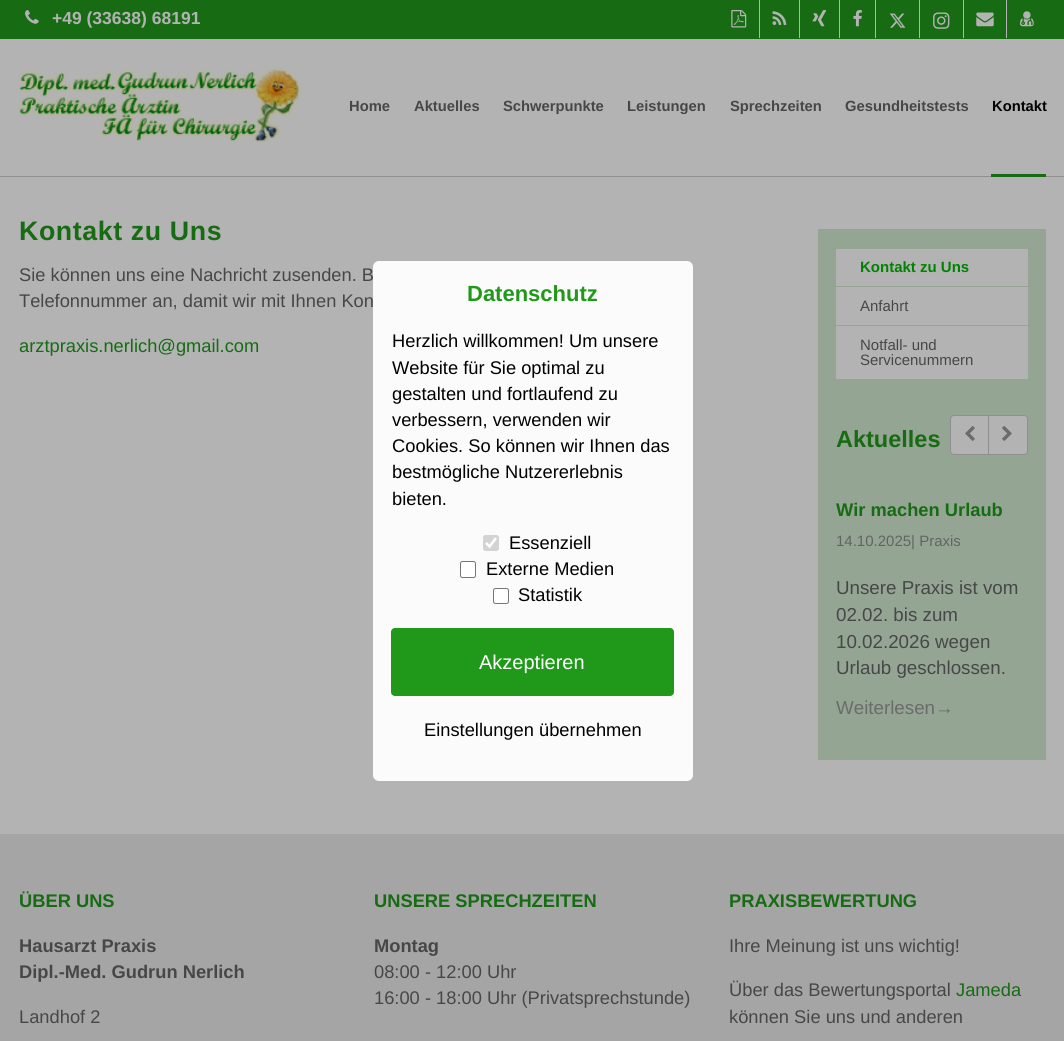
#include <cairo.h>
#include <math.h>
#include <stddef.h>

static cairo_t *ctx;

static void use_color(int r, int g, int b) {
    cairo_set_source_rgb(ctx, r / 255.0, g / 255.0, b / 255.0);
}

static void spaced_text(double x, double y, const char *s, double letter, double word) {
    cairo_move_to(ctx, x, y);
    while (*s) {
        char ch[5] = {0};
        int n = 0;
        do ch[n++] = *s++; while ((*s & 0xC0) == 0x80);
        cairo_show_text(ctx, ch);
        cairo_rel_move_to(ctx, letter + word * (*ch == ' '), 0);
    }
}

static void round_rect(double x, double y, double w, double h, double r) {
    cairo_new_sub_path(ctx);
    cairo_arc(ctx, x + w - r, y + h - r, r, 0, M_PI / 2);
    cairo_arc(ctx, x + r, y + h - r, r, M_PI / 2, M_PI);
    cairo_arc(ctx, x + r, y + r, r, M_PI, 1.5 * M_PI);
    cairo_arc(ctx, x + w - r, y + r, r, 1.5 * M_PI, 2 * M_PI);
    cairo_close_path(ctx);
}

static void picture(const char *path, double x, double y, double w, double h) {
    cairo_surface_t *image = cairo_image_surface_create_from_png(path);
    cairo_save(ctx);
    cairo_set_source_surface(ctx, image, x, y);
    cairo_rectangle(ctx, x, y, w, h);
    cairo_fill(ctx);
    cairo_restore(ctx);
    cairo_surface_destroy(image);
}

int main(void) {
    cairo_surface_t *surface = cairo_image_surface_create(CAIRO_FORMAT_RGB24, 1064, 1041);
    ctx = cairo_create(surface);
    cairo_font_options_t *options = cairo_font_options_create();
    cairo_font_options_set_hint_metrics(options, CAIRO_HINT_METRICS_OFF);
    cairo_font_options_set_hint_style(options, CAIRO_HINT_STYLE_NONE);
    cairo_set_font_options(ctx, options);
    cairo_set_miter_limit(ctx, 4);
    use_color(179, 179, 179);
    cairo_paint(ctx);
    use_color(143, 143, 143);
    cairo_rectangle(ctx, 0, 176, 1064, 1);
    cairo_fill(ctx);
    use_color(22, 107, 19);
    cairo_rectangle(ctx, 0, 0, 1064, 39);
    cairo_fill(ctx);
    picture("img1.png", 25, 10, 14, 14);
    cairo_select_font_face(ctx, "Liberation Sans", CAIRO_FONT_SLANT_NORMAL, CAIRO_FONT_WEIGHT_BOLD);
    cairo_set_font_size(ctx, 17.5);
    use_color(179, 179, 179);
    cairo_move_to(ctx, 52, 24);
    cairo_show_text(ctx, "+49 (33638) 68191");
    cairo_rectangle(ctx, 759, 0, 1, 38);
    cairo_fill(ctx);
    picture("img2.png", 731, 10, 16, 18);
    cairo_rectangle(ctx, 799, 0, 1, 38);
    cairo_fill(ctx);
    picture("img3.png", 772, 11, 15, 14);
    cairo_rectangle(ctx, 839, 0, 1, 38);
    cairo_fill(ctx);
    picture("img4.png", 812, 10, 15, 17);
    cairo_rectangle(ctx, 875, 0, 1, 38);
    cairo_fill(ctx);
    picture("img5.png", 853, 10, 9, 17);
    cairo_rectangle(ctx, 919, 0, 1, 38);
    cairo_fill(ctx);
    picture("img6.png", 889, 13, 17, 15);
    cairo_rectangle(ctx, 963, 0, 1, 38);
    cairo_fill(ctx);
    picture("img7.png", 933, 12, 17, 17);
    cairo_rectangle(ctx, 1006, 0, 1, 38);
    cairo_fill(ctx);
    picture("img8.png", 976, 12, 18, 15);
    picture("img9.png", 1020, 11, 14, 16);
    picture("img10.png", 19, 68, 283, 74);
    cairo_set_font_size(ctx, 14.75);
    use_color(71, 71, 71);
    cairo_move_to(ctx, 349, 111);
    cairo_show_text(ctx, "Home");
    cairo_move_to(ctx, 414, 111);
    cairo_show_text(ctx, "Aktuelles");
    cairo_move_to(ctx, 503, 111);
    cairo_show_text(ctx, "Schwerpunkte");
    cairo_move_to(ctx, 627, 111);
    cairo_show_text(ctx, "Leistungen");
    cairo_move_to(ctx, 730, 111);
    cairo_show_text(ctx, "Sprechzeiten");
    cairo_move_to(ctx, 845, 111);
    cairo_show_text(ctx, "Gesundheitstests");
    use_color(22, 107, 19);
    cairo_rectangle(ctx, 991, 174, 55, 3);
    cairo_fill(ctx);
    use_color(0, 0, 0);
    cairo_move_to(ctx, 992, 111);
    cairo_show_text(ctx, "Kontakt");
    cairo_set_font_size(ctx, 26.75);
    use_color(22, 107, 19);
    spaced_text(19, 240, "Kontakt zu Uns", 0.6, 0);
    cairo_select_font_face(ctx, "Liberation Sans", CAIRO_FONT_SLANT_NORMAL, CAIRO_FONT_WEIGHT_NORMAL);
    cairo_set_font_size(ctx, 18.3);
    use_color(71, 71, 71);
    cairo_move_to(ctx, 19, 281);
    cairo_show_text(ctx, "Sie können uns eine Nachricht zusenden. B");
    cairo_move_to(ctx, 19, 307);
    cairo_show_text(ctx, "Telefonnummer an, damit wir mit Ihnen Kon");
    use_color(22, 107, 19);
    cairo_move_to(ctx, 19, 352);
    cairo_show_text(ctx, "arztpraxis.nerlich@gmail.com");
    use_color(148, 165, 147);
    cairo_rectangle(ctx, 818, 229, 228, 531);
    cairo_fill(ctx);
    use_color(179, 179, 179);
    cairo_rectangle(ctx, 836, 249, 192, 130);
    cairo_fill(ctx);
    use_color(147, 165, 146);
    cairo_rectangle(ctx, 836, 286, 192, 1);
    cairo_fill(ctx);
    cairo_select_font_face(ctx, "Liberation Sans", CAIRO_FONT_SLANT_NORMAL, CAIRO_FONT_WEIGHT_BOLD);
    cairo_set_font_size(ctx, 15);
    use_color(0, 131, 0);
    cairo_move_to(ctx, 860, 272);
    cairo_show_text(ctx, "Kontakt zu Uns");
    use_color(147, 165, 146);
    cairo_rectangle(ctx, 836, 325, 192, 1);
    cairo_fill(ctx);
    cairo_select_font_face(ctx, "Liberation Sans", CAIRO_FONT_SLANT_NORMAL, CAIRO_FONT_WEIGHT_NORMAL);
    use_color(71, 71, 71);
    cairo_move_to(ctx, 860, 311);
    cairo_show_text(ctx, "Anfahrt");
    cairo_move_to(ctx, 860, 350);
    cairo_show_text(ctx, "Notfall- und");
    cairo_move_to(ctx, 860, 365);
    cairo_show_text(ctx, "Servicenummern");
    cairo_select_font_face(ctx, "Liberation Sans", CAIRO_FONT_SLANT_NORMAL, CAIRO_FONT_WEIGHT_BOLD);
    cairo_set_font_size(ctx, 23.5);
    use_color(22, 107, 19);
    cairo_move_to(ctx, 836, 447);
    cairo_show_text(ctx, "Aktuelles");
    use_color(179, 179, 179);
    cairo_new_path(ctx);
    cairo_move_to(ctx, 954, 415.5);
    cairo_line_to(ctx, 988.5, 415.5);
    cairo_line_to(ctx, 988.5, 454.5);
    cairo_line_to(ctx, 954, 454.5);
    cairo_curve_to(ctx, 952, 454.5, 950.5, 453, 950.5, 451);
    cairo_line_to(ctx, 950.5, 419);
    cairo_curve_to(ctx, 950.5, 417, 952, 415.5, 954, 415.5);
    cairo_close_path(ctx);
    cairo_fill_preserve(ctx);
    use_color(143, 143, 143);
    cairo_set_line_width(ctx, 1);
    cairo_stroke(ctx);
    picture("img11.png", 965, 426, 10, 15);
    use_color(179, 179, 179);
    cairo_new_path(ctx);
    cairo_move_to(ctx, 988.5, 415.5);
    cairo_line_to(ctx, 1024, 415.5);
    cairo_curve_to(ctx, 1026, 415.5, 1027.5, 417, 1027.5, 419);
    cairo_line_to(ctx, 1027.5, 451);
    cairo_curve_to(ctx, 1027.5, 453, 1026, 454.5, 1024, 454.5);
    cairo_line_to(ctx, 988.5, 454.5);
    cairo_close_path(ctx);
    cairo_fill_preserve(ctx);
    use_color(143, 143, 143);
    cairo_stroke(ctx);
    picture("img12.png", 1002, 426, 10, 15);
    cairo_set_font_size(ctx, 18.3);
    use_color(22, 107, 19);
    cairo_move_to(ctx, 836, 516);
    cairo_show_text(ctx, "Wir machen Urlaub");
    cairo_select_font_face(ctx, "Liberation Sans", CAIRO_FONT_SLANT_NORMAL, CAIRO_FONT_WEIGHT_NORMAL);
    cairo_set_font_size(ctx, 15);
    use_color(99, 99, 99);
    cairo_move_to(ctx, 836, 546);
    cairo_show_text(ctx, "14.10.2025| Praxis");
    cairo_set_font_size(ctx, 18.75);
    use_color(71, 71, 71);
    cairo_move_to(ctx, 836, 594);
    cairo_show_text(ctx, "Unsere Praxis ist vom");
    cairo_move_to(ctx, 836, 621);
    cairo_show_text(ctx, "02.02. bis zum");
    cairo_move_to(ctx, 836, 648);
    cairo_show_text(ctx, "10.02.2026 wegen");
    cairo_move_to(ctx, 836, 674);
    cairo_show_text(ctx, "Urlaub geschlossen.");
    use_color(107, 107, 107);
    cairo_move_to(ctx, 836, 714);
    cairo_show_text(ctx, "Weiterlesen→");
    use_color(165, 165, 165);
    cairo_rectangle(ctx, 0, 834, 1064, 207);
    cairo_fill(ctx);
    cairo_select_font_face(ctx, "Liberation Sans", CAIRO_FONT_SLANT_NORMAL, CAIRO_FONT_WEIGHT_BOLD);
    cairo_set_font_size(ctx, 18.3);
    use_color(22, 107, 19);
    cairo_move_to(ctx, 19, 907);
    cairo_show_text(ctx, "ÜBER UNS");
    use_color(71, 71, 71);
    cairo_move_to(ctx, 19, 952);
    cairo_show_text(ctx, "Hausarzt Praxis");
    cairo_move_to(ctx, 19, 978);
    cairo_show_text(ctx, "Dipl.-Med. Gudrun Nerlich");
    cairo_select_font_face(ctx, "Liberation Sans", CAIRO_FONT_SLANT_NORMAL, CAIRO_FONT_WEIGHT_NORMAL);
    cairo_move_to(ctx, 19, 1023);
    cairo_show_text(ctx, "Landhof 2");
    cairo_select_font_face(ctx, "Liberation Sans", CAIRO_FONT_SLANT_NORMAL, CAIRO_FONT_WEIGHT_BOLD);
    use_color(22, 107, 19);
    cairo_move_to(ctx, 374, 907);
    cairo_show_text(ctx, "UNSERE SPRECHZEITEN");
    use_color(71, 71, 71);
    cairo_move_to(ctx, 374, 952);
    cairo_show_text(ctx, "Montag");
    cairo_select_font_face(ctx, "Liberation Sans", CAIRO_FONT_SLANT_NORMAL, CAIRO_FONT_WEIGHT_NORMAL);
    cairo_move_to(ctx, 374, 978);
    cairo_show_text(ctx, "08:00 - 12:00 Uhr");
    cairo_move_to(ctx, 374, 1004);
    cairo_show_text(ctx, "16:00 - 18:00 Uhr (Privatsprechstunde)");
    cairo_select_font_face(ctx, "Liberation Sans", CAIRO_FONT_SLANT_NORMAL, CAIRO_FONT_WEIGHT_BOLD);
    use_color(22, 107, 19);
    cairo_move_to(ctx, 729, 907);
    cairo_show_text(ctx, "PRAXISBEWERTUNG");
    cairo_select_font_face(ctx, "Liberation Sans", CAIRO_FONT_SLANT_NORMAL, CAIRO_FONT_WEIGHT_NORMAL);
    use_color(71, 71, 71);
    cairo_move_to(ctx, 729, 952);
    cairo_show_text(ctx, "Ihre Meinung ist uns wichtig!");
    cairo_move_to(ctx, 729, 996);
    cairo_show_text(ctx, "Über das Bewertungsportal");
    use_color(22, 107, 19);
    cairo_move_to(ctx, 956, 996);
    cairo_show_text(ctx, "Jameda");
    use_color(71, 71, 71);
    cairo_move_to(ctx, 729, 1023);
    cairo_show_text(ctx, "können Sie uns und anderen");
    cairo_set_source_rgba(ctx, 1, 1, 1, 0.95);
    round_rect(373, 261, 320, 520, 6);
    cairo_fill(ctx);
    cairo_select_font_face(ctx, "Liberation Sans", CAIRO_FONT_SLANT_NORMAL, CAIRO_FONT_WEIGHT_BOLD);
    cairo_set_font_size(ctx, 22);
    use_color(32, 153, 27);
    cairo_move_to(ctx, 467, 301);
    cairo_show_text(ctx, "Datenschutz");
    cairo_select_font_face(ctx, "Liberation Sans", CAIRO_FONT_SLANT_NORMAL, CAIRO_FONT_WEIGHT_NORMAL);
    cairo_set_font_size(ctx, 18.3);
    use_color(0, 0, 0);
    cairo_move_to(ctx, 392, 347);
    cairo_show_text(ctx, "Herzlich willkommen! Um unsere");
    cairo_move_to(ctx, 392, 374);
    cairo_show_text(ctx, "Website für Sie optimal zu");
    cairo_move_to(ctx, 392, 400);
    cairo_show_text(ctx, "gestalten und fortlaufend zu");
    cairo_move_to(ctx, 392, 426);
    cairo_show_text(ctx, "verbessern, verwenden wir");
    cairo_move_to(ctx, 392, 452);
    cairo_show_text(ctx, "Cookies. So können wir Ihnen das");
    cairo_move_to(ctx, 392, 478);
    cairo_show_text(ctx, "bestmögliche Nutzererlebnis");
    cairo_move_to(ctx, 392, 505);
    cairo_show_text(ctx, "bieten.");
    use_color(211, 211, 211);
    round_rect(483, 535, 16, 16, 2.5);
    cairo_fill(ctx);
    cairo_new_path(ctx);
    cairo_move_to(ctx, 486, 543);
    cairo_line_to(ctx, 489.5, 546.5);
    cairo_line_to(ctx, 496, 538);
    use_color(255, 255, 255);
    cairo_set_line_width(ctx, 2.6);
    cairo_stroke(ctx);
    use_color(0, 0, 0);
    cairo_move_to(ctx, 509, 549);
    cairo_show_text(ctx, "Essenziell");
    use_color(255, 255, 255);
    round_rect(460.5, 561.5, 15, 16, 2);
    cairo_fill_preserve(ctx);
    use_color(118, 118, 118);
    cairo_set_line_width(ctx, 1);
    cairo_stroke(ctx);
    use_color(0, 0, 0);
    cairo_move_to(ctx, 486, 575);
    cairo_show_text(ctx, "Externe Medien");
    use_color(255, 255, 255);
    round_rect(493.5, 588.5, 15, 15, 2);
    cairo_fill_preserve(ctx);
    use_color(118, 118, 118);
    cairo_stroke(ctx);
    use_color(0, 0, 0);
    cairo_move_to(ctx, 518, 601);
    cairo_show_text(ctx, "Statistik");
    use_color(32, 153, 27);
    round_rect(391, 628, 283, 68, 4);
    cairo_fill(ctx);
    cairo_set_font_size(ctx, 20);
    use_color(255, 255, 255);
    cairo_move_to(ctx, 479, 669);
    cairo_show_text(ctx, "Akzeptieren");
    cairo_set_font_size(ctx, 18.3);
    use_color(0, 0, 0);
    cairo_move_to(ctx, 424, 736);
    cairo_show_text(ctx, "Einstellungen übernehmen");
    cairo_surface_write_to_png(surface, "result.png");
    cairo_font_options_destroy(options);
    cairo_destroy(ctx);
    cairo_surface_destroy(surface);
    return 0;
}
